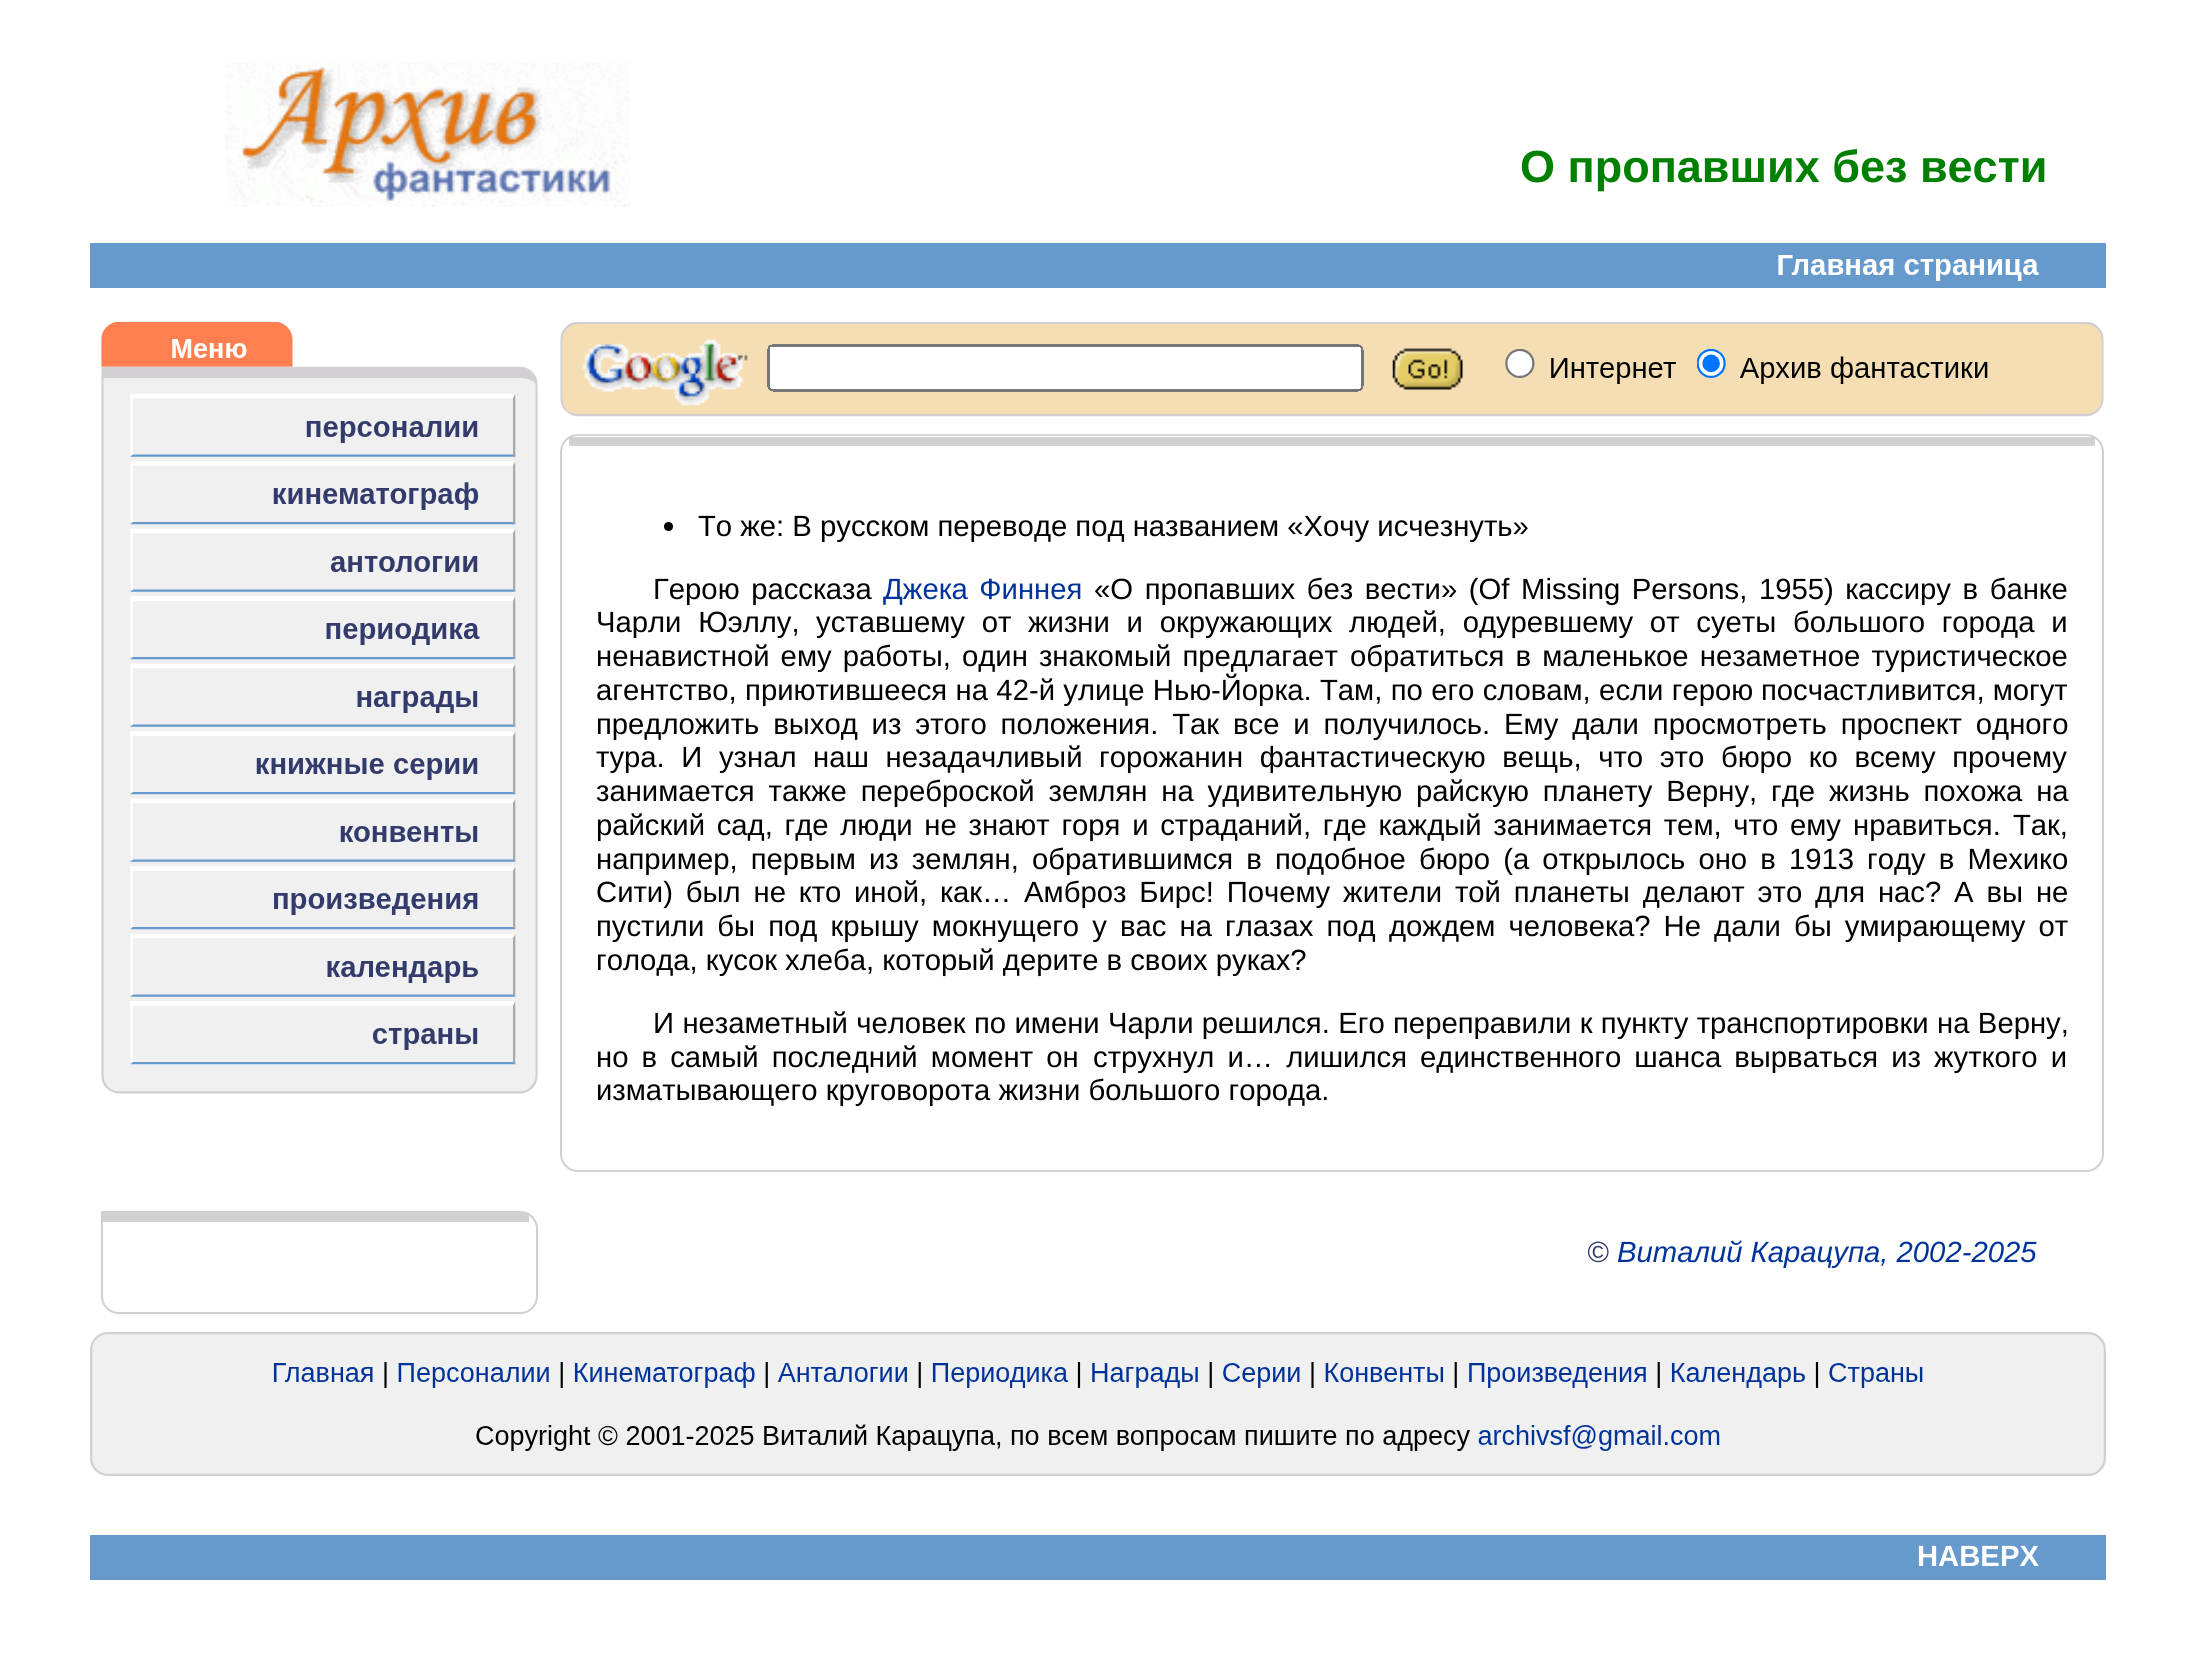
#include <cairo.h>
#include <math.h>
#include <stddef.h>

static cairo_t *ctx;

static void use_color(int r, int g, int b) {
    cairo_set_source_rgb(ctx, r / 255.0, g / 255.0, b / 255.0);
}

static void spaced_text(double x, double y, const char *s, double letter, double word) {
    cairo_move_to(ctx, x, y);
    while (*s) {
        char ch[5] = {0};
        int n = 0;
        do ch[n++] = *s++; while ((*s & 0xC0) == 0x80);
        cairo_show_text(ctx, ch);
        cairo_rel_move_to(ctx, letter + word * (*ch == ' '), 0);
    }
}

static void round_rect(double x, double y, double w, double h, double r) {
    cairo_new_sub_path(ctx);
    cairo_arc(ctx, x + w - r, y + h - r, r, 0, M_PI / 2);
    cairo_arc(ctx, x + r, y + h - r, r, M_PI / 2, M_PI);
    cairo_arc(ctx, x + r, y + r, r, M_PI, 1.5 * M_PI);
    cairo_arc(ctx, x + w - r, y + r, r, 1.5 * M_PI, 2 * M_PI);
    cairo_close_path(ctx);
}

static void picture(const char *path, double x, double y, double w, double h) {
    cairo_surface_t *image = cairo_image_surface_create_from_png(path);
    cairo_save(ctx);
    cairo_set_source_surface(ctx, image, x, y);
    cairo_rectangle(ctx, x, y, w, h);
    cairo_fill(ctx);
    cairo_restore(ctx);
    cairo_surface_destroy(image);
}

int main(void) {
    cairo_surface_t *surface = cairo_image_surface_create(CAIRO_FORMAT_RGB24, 2203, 1680);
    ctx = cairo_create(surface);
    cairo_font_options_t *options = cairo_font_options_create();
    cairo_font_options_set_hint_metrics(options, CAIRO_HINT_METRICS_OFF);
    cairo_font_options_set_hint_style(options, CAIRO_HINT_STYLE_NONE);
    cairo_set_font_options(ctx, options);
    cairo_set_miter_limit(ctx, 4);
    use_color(255, 255, 255);
    cairo_paint(ctx);
    picture("img1.png", 225, 63, 405, 144);
    cairo_select_font_face(ctx, "Liberation Sans", CAIRO_FONT_SLANT_NORMAL, CAIRO_FONT_WEIGHT_BOLD);
    cairo_set_font_size(ctx, 45);
    use_color(0, 128, 0);
    cairo_move_to(ctx, 1520, 182);
    cairo_show_text(ctx, "О пропавших без вести");
    picture("img2.png", 90, 243, 2016, 45);
    picture("img3.png", 101, 321, 437, 773);
    cairo_new_path(ctx);
    cairo_move_to(ctx, 102, 1212);
    cairo_line_to(ctx, 520, 1212);
    cairo_curve_to(ctx, 529.5, 1212, 537, 1219.5, 537, 1229);
    cairo_line_to(ctx, 537, 1296);
    cairo_curve_to(ctx, 537, 1305.5, 529.5, 1313, 520, 1313);
    cairo_line_to(ctx, 119, 1313);
    cairo_curve_to(ctx, 109.5, 1313, 102, 1305.5, 102, 1296);
    cairo_close_path(ctx);
    use_color(210, 208, 210);
    cairo_stroke(ctx);
    cairo_rectangle(ctx, 103, 1213, 426, 9);
    cairo_fill(ctx);
    round_rect(561, 435, 1542, 736, 17);
    cairo_stroke(ctx);
    picture("img4.png", 560, 322, 1544, 113);
    cairo_rectangle(ctx, 569, 437, 1526, 9);
    cairo_fill(ctx);
    use_color(0, 0, 0);
    cairo_arc(ctx, 668.5, 526.5, 4.5, 0, 2 * M_PI);
    cairo_fill(ctx);
    cairo_select_font_face(ctx, "Liberation Sans", CAIRO_FONT_SLANT_NORMAL, CAIRO_FONT_WEIGHT_NORMAL);
    cairo_set_font_size(ctx, 29.25);
    cairo_move_to(ctx, 698, 536);
    cairo_show_text(ctx, "То же: В русском переводе под названием «Хочу исчезнуть»");
    spaced_text(653, 599, "Герою рассказа", 0, 3.5);
    use_color(0, 51, 153);
    spaced_text(883, 599, "Джека Финнея", 0, 3.5);
    use_color(0, 0, 0);
    spaced_text(1094, 599, "«О пропавших без вести» (Of Missing Persons, 1955) кассиру в банке", 0, 3.5);
    spaced_text(596, 632, "Чарли Юэллу,", 0, 8.6);
    spaced_text(816, 632, "уставшему от жизни и окружающих людей, одуревшему от суеты большого города и", 0, 8.6);
    spaced_text(596, 666, "ненавистной ему работы, один знакомый предлагает", 0, 3);
    spaced_text(1350, 666, "обратиться в маленькое незаметное туристическое", 0, 3);
    spaced_text(596, 700, "агентство, приютившееся на 42-й улице Нью-Йорка. Там, по его словам, если герою", 0, 0.25);
    cairo_move_to(ctx, 1761, 700);
    cairo_show_text(ctx, "посчастливится, могут");
    spaced_text(596, 734, "предложить выход из этого положения. Так все и получилось. Ему дали просмотреть проспект одного", 0, 5.75);
    spaced_text(596, 767, "тура. И узнал", 0, 8.5);
    spaced_text(813, 767, "наш незадачливый горожанин фантастическую вещь, что это бюро ко всему прочему", 0, 8.5);
    spaced_text(596, 801, "занимается также переброской землян на удивительную", 0, 5.75);
    spaced_text(1416, 801, "райскую планету Верну, где жизнь похожа на", 0, 5.75);
    spaced_text(596, 835, "райский сад, где люди не знают горя и страданий, где каждый занимается тем, что ему", 0, 3.6);
    spaced_text(1853, 835, "нравиться. Так,", 0, 4);
    spaced_text(596, 869, "например, первым из землян, обратившимся в подобное бюро (а открылось оно в 1913 году в Мехико", 0, 5);
    spaced_text(596, 902, "Сити) был не кто", 0, 4.75);
    spaced_text(854, 902, "иной, как… Амброз Бирс! Почему жители той планеты делают это для нас? А вы не", 0, 4.75);
    spaced_text(596, 936, "пустили бы под крышу мокнущего у вас на глазах под", 0, 5);
    spaced_text(1389, 936, "дождем человека? Не дали бы умирающему от", 0, 5);
    cairo_move_to(ctx, 596, 970);
    cairo_show_text(ctx, "голода, кусок хлеба, который дерите в своих руках?");
    spaced_text(653, 1033, "И незаметный человек по имени Чарли решился. Его переправили к пункту транспортировки на Верну,", 0, 0.25);
    spaced_text(596, 1067, "но в самый последний момент он", 0, 5);
    spaced_text(1093, 1067, "струхнул и… лишился единственного шанса вырваться из жуткого и", 0, 5);
    cairo_move_to(ctx, 596, 1100);
    cairo_show_text(ctx, "изматывающего круговорота жизни большого города.");
    cairo_select_font_face(ctx, "Liberation Sans", CAIRO_FONT_SLANT_ITALIC, CAIRO_FONT_WEIGHT_NORMAL);
    use_color(51, 59, 108);
    cairo_move_to(ctx, 1587, 1262);
    cairo_show_text(ctx, "©");
    use_color(0, 51, 153);
    cairo_move_to(ctx, 1617, 1262);
    cairo_show_text(ctx, "Виталий Карацупа, 2002-2025");
    picture("img5.png", 90, 1332, 2016, 144);
    use_color(102, 153, 204);
    cairo_rectangle(ctx, 90, 1535, 2016, 45);
    cairo_fill(ctx);
    cairo_select_font_face(ctx, "Liberation Sans", CAIRO_FONT_SLANT_NORMAL, CAIRO_FONT_WEIGHT_BOLD);
    use_color(255, 255, 255);
    cairo_move_to(ctx, 1917, 1566);
    cairo_show_text(ctx, "НАВЕРХ");
    cairo_surface_write_to_png(surface, "result.png");
    cairo_font_options_destroy(options);
    cairo_destroy(ctx);
    cairo_surface_destroy(surface);
    return 0;
}
